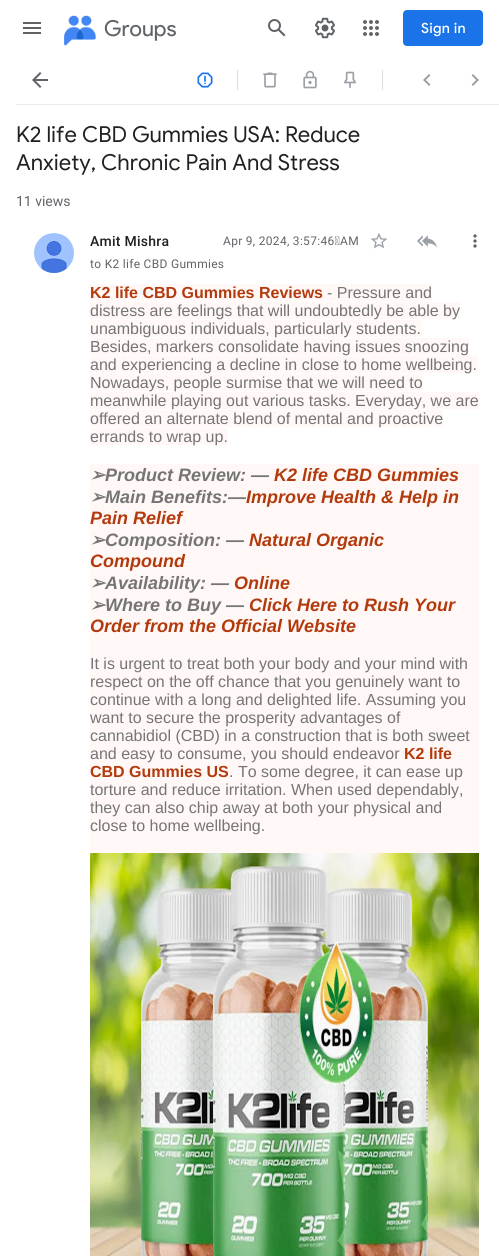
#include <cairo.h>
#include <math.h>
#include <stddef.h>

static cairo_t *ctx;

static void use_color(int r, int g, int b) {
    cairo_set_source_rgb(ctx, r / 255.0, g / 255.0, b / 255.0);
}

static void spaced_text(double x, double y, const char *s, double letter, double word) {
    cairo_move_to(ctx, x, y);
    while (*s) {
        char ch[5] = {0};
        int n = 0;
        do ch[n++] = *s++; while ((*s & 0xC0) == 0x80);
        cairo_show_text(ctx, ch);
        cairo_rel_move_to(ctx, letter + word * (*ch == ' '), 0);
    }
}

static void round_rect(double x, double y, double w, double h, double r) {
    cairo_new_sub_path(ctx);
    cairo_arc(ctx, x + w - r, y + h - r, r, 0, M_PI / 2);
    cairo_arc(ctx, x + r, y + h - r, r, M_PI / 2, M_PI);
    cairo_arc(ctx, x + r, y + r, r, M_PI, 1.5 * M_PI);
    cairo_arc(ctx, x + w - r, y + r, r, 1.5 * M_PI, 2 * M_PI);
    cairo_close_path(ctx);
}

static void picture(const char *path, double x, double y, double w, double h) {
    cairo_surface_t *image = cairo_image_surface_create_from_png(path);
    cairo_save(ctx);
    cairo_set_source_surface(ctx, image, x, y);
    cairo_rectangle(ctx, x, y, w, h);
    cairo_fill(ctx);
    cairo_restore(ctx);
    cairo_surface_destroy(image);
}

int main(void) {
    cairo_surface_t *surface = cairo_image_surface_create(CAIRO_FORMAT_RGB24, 499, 1256);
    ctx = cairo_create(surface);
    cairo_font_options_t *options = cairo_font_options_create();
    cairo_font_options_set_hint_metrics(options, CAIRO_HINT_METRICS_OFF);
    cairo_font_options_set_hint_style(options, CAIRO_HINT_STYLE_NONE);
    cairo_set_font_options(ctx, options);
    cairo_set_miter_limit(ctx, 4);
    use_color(255, 255, 255);
    cairo_paint(ctx);
    picture("img1.png", 23, 22, 18, 12);
    picture("img2.png", 64, 15, 32, 31);
    cairo_select_font_face(ctx, "Product Sans", CAIRO_FONT_SLANT_NORMAL, CAIRO_FONT_WEIGHT_NORMAL);
    cairo_set_font_size(ctx, 22);
    use_color(95, 99, 104);
    cairo_move_to(ctx, 104, 36);
    cairo_show_text(ctx, "Groups");
    picture("img3.png", 268, 19, 18, 18);
    picture("img4.png", 315, 17, 20, 22);
    picture("img5.png", 363, 20, 16, 16);
    use_color(26, 115, 232);
    round_rect(403, 10, 80, 36, 4);
    cairo_fill(ctx);
    cairo_select_font_face(ctx, "Google Sans Medium", CAIRO_FONT_SLANT_NORMAL, CAIRO_FONT_WEIGHT_NORMAL);
    cairo_set_font_size(ctx, 14);
    use_color(255, 255, 255);
    spaced_text(421, 33, "Sign in", 0.25, 0);
    use_color(232, 234, 237);
    cairo_rectangle(ctx, 16, 104, 483, 1);
    cairo_fill(ctx);
    picture("img6.png", 32, 72, 16, 16);
    picture("img7.png", 197, 72, 16, 16);
    use_color(221, 221, 221);
    cairo_rectangle(ctx, 237, 70, 1, 20);
    cairo_fill(ctx);
    picture("img8.png", 263, 72, 14, 16);
    picture("img9.png", 303, 70, 14, 19);
    picture("img10.png", 344, 71, 12, 18);
    cairo_rectangle(ctx, 382, 70, 1, 20);
    cairo_fill(ctx);
    picture("img11.png", 423, 74, 8, 12);
    picture("img12.png", 471, 74, 8, 12);
    cairo_select_font_face(ctx, "Google Sans", CAIRO_FONT_SLANT_NORMAL, CAIRO_FONT_WEIGHT_NORMAL);
    cairo_set_font_size(ctx, 22);
    use_color(32, 33, 36);
    cairo_move_to(ctx, 16, 142);
    cairo_show_text(ctx, "K2 life CBD Gummies USA: Reduce");
    cairo_move_to(ctx, 16, 170);
    cairo_show_text(ctx, "Anxiety, Chronic Pain And Stress");
    cairo_select_font_face(ctx, "Roboto", CAIRO_FONT_SLANT_NORMAL, CAIRO_FONT_WEIGHT_NORMAL);
    cairo_set_font_size(ctx, 14);
    use_color(95, 99, 104);
    cairo_move_to(ctx, 16, 206);
    cairo_show_text(ctx, "11 views");
    picture("img13.png", 34, 233, 40, 40);
    cairo_select_font_face(ctx, "Roboto Medium", CAIRO_FONT_SLANT_NORMAL, CAIRO_FONT_WEIGHT_NORMAL);
    use_color(32, 33, 36);
    spaced_text(90, 246, "Amit Mishra", 0.25, 0);
    cairo_select_font_face(ctx, "Roboto", CAIRO_FONT_SLANT_NORMAL, CAIRO_FONT_WEIGHT_NORMAL);
    cairo_set_font_size(ctx, 12);
    use_color(95, 99, 104);
    spaced_text(223, 245, "Apr 9, 2024, 3:57:46 AM", 0.3, 0);
    picture("img14.png", 370, 233, 18, 16);
    picture("img15.png", 417, 235, 20, 13);
    picture("img16.png", 473, 234, 4, 14);
    spaced_text(90, 268, "to K2 life CBD Gummies", 0.3, 0);
    use_color(255, 248, 246);
    cairo_rectangle(ctx, 90, 284, 342, 17);
    cairo_fill(ctx);
    cairo_select_font_face(ctx, "Liberation Sans", CAIRO_FONT_SLANT_NORMAL, CAIRO_FONT_WEIGHT_BOLD);
    cairo_set_font_size(ctx, 16);
    use_color(179, 58, 13);
    cairo_move_to(ctx, 90, 298);
    cairo_show_text(ctx, "K2 life CBD Gummies Reviews");
    cairo_select_font_face(ctx, "Liberation Sans", CAIRO_FONT_SLANT_NORMAL, CAIRO_FONT_WEIGHT_NORMAL);
    use_color(117, 117, 117);
    cairo_move_to(ctx, 327, 298);
    cairo_show_text(ctx, "- Pressure and");
    use_color(255, 248, 246);
    cairo_rectangle(ctx, 90, 302, 370, 17);
    cairo_fill(ctx);
    use_color(117, 117, 117);
    cairo_move_to(ctx, 90, 316);
    cairo_show_text(ctx, "distress are feelings that will undoubtedly be able by");
    use_color(255, 248, 246);
    cairo_rectangle(ctx, 90, 320, 331, 17);
    cairo_fill(ctx);
    use_color(117, 117, 117);
    cairo_move_to(ctx, 90, 334);
    cairo_show_text(ctx, "unambiguous individuals, particularly students.");
    use_color(255, 248, 246);
    cairo_rectangle(ctx, 90, 338, 379, 17);
    cairo_fill(ctx);
    use_color(117, 117, 117);
    cairo_move_to(ctx, 90, 352);
    cairo_show_text(ctx, "Besides, markers consolidate having issues snoozing");
    use_color(255, 248, 246);
    cairo_rectangle(ctx, 90, 356, 387, 17);
    cairo_fill(ctx);
    use_color(117, 117, 117);
    cairo_move_to(ctx, 90, 370);
    cairo_show_text(ctx, "and experiencing a decline in close to home wellbeing.");
    use_color(255, 248, 246);
    cairo_rectangle(ctx, 90, 374, 333, 17);
    cairo_fill(ctx);
    use_color(117, 117, 117);
    cairo_move_to(ctx, 90, 388);
    cairo_show_text(ctx, "Nowadays, people surmise that we will need to");
    use_color(255, 248, 246);
    cairo_rectangle(ctx, 90, 392, 389, 17);
    cairo_fill(ctx);
    use_color(117, 117, 117);
    cairo_move_to(ctx, 90, 406);
    cairo_show_text(ctx, "meanwhile playing out various tasks. Everyday, we are");
    use_color(255, 248, 246);
    cairo_rectangle(ctx, 90, 410, 353, 17);
    cairo_fill(ctx);
    use_color(117, 117, 117);
    cairo_move_to(ctx, 90, 424);
    cairo_show_text(ctx, "offered an alternate blend of mental and proactive");
    use_color(255, 248, 246);
    cairo_rectangle(ctx, 90, 428, 138, 17);
    cairo_fill(ctx);
    use_color(117, 117, 117);
    cairo_move_to(ctx, 90, 442);
    cairo_show_text(ctx, "errands to wrap up.");
    use_color(255, 248, 246);
    cairo_rectangle(ctx, 90, 464, 389, 389);
    cairo_fill(ctx);
    cairo_select_font_face(ctx, "DejaVu Sans", CAIRO_FONT_SLANT_ITALIC, CAIRO_FONT_WEIGHT_BOLD);
    cairo_set_font_size(ctx, 18);
    use_color(117, 117, 117);
    cairo_move_to(ctx, 90, 481);
    cairo_show_text(ctx, "➢");
    cairo_select_font_face(ctx, "Liberation Sans", CAIRO_FONT_SLANT_ITALIC, CAIRO_FONT_WEIGHT_BOLD);
    cairo_move_to(ctx, 105, 481);
    cairo_show_text(ctx, "Product Review: —");
    use_color(179, 58, 13);
    cairo_move_to(ctx, 274, 481);
    cairo_show_text(ctx, "K2 life CBD Gummies");
    cairo_select_font_face(ctx, "DejaVu Sans", CAIRO_FONT_SLANT_ITALIC, CAIRO_FONT_WEIGHT_BOLD);
    use_color(117, 117, 117);
    cairo_move_to(ctx, 90, 503);
    cairo_show_text(ctx, "➢");
    cairo_select_font_face(ctx, "Liberation Sans", CAIRO_FONT_SLANT_ITALIC, CAIRO_FONT_WEIGHT_BOLD);
    cairo_move_to(ctx, 105, 503);
    cairo_show_text(ctx, "Main Benefits:—");
    use_color(179, 58, 13);
    cairo_move_to(ctx, 246, 503);
    cairo_show_text(ctx, "Improve Health & Help in");
    cairo_move_to(ctx, 90, 524);
    cairo_show_text(ctx, "Pain Relief");
    cairo_select_font_face(ctx, "DejaVu Sans", CAIRO_FONT_SLANT_ITALIC, CAIRO_FONT_WEIGHT_BOLD);
    use_color(117, 117, 117);
    cairo_move_to(ctx, 90, 546);
    cairo_show_text(ctx, "➢");
    cairo_select_font_face(ctx, "Liberation Sans", CAIRO_FONT_SLANT_ITALIC, CAIRO_FONT_WEIGHT_BOLD);
    cairo_move_to(ctx, 105, 546);
    cairo_show_text(ctx, "Composition: —");
    use_color(179, 58, 13);
    cairo_move_to(ctx, 249, 546);
    cairo_show_text(ctx, "Natural Organic");
    cairo_move_to(ctx, 90, 567);
    cairo_show_text(ctx, "Compound");
    cairo_select_font_face(ctx, "DejaVu Sans", CAIRO_FONT_SLANT_ITALIC, CAIRO_FONT_WEIGHT_BOLD);
    use_color(117, 117, 117);
    cairo_move_to(ctx, 90, 589);
    cairo_show_text(ctx, "➢");
    cairo_select_font_face(ctx, "Liberation Sans", CAIRO_FONT_SLANT_ITALIC, CAIRO_FONT_WEIGHT_BOLD);
    cairo_move_to(ctx, 105, 589);
    cairo_show_text(ctx, "Availability: —");
    use_color(179, 58, 13);
    cairo_move_to(ctx, 234, 589);
    cairo_show_text(ctx, "Online");
    cairo_select_font_face(ctx, "DejaVu Sans", CAIRO_FONT_SLANT_ITALIC, CAIRO_FONT_WEIGHT_BOLD);
    use_color(117, 117, 117);
    cairo_move_to(ctx, 90, 611);
    cairo_show_text(ctx, "➢");
    cairo_select_font_face(ctx, "Liberation Sans", CAIRO_FONT_SLANT_ITALIC, CAIRO_FONT_WEIGHT_BOLD);
    cairo_move_to(ctx, 105, 611);
    cairo_show_text(ctx, "Where to Buy —");
    use_color(179, 58, 13);
    cairo_move_to(ctx, 249, 611);
    cairo_show_text(ctx, "Click Here to Rush Your");
    cairo_move_to(ctx, 90, 632);
    cairo_show_text(ctx, "Order from the Official Website");
    cairo_select_font_face(ctx, "Liberation Sans", CAIRO_FONT_SLANT_NORMAL, CAIRO_FONT_WEIGHT_NORMAL);
    cairo_set_font_size(ctx, 16);
    use_color(117, 117, 117);
    cairo_move_to(ctx, 90, 669);
    cairo_show_text(ctx, "It is urgent to treat both your body and your mind with");
    cairo_move_to(ctx, 90, 687);
    cairo_show_text(ctx, "respect on the off chance that you genuinely want to");
    cairo_move_to(ctx, 90, 705);
    cairo_show_text(ctx, "continue with a long and delighted life. Assuming you");
    cairo_move_to(ctx, 90, 723);
    cairo_show_text(ctx, "want to secure the prosperity advantages of");
    cairo_move_to(ctx, 90, 741);
    cairo_show_text(ctx, "cannabidiol (CBD) in a construction that is both sweet");
    cairo_move_to(ctx, 90, 759);
    cairo_show_text(ctx, "and easy to consume, you should endeavor");
    cairo_select_font_face(ctx, "Liberation Sans", CAIRO_FONT_SLANT_NORMAL, CAIRO_FONT_WEIGHT_BOLD);
    use_color(179, 58, 13);
    cairo_move_to(ctx, 404, 759);
    cairo_show_text(ctx, "K2 life");
    cairo_move_to(ctx, 90, 777);
    cairo_show_text(ctx, "CBD Gummies US");
    cairo_select_font_face(ctx, "Liberation Sans", CAIRO_FONT_SLANT_NORMAL, CAIRO_FONT_WEIGHT_NORMAL);
    use_color(117, 117, 117);
    cairo_move_to(ctx, 229, 777);
    cairo_show_text(ctx, ". To some degree, it can ease up");
    cairo_move_to(ctx, 90, 795);
    cairo_show_text(ctx, "torture and reduce irritation. When used dependably,");
    cairo_move_to(ctx, 90, 813);
    cairo_show_text(ctx, "they can also chip away at both your physical and");
    cairo_move_to(ctx, 90, 831);
    cairo_show_text(ctx, "close to home wellbeing.");
    picture("img17.png", 90, 853, 389, 403);
    cairo_surface_write_to_png(surface, "result.png");
    cairo_font_options_destroy(options);
    cairo_destroy(ctx);
    cairo_surface_destroy(surface);
    return 0;
}
